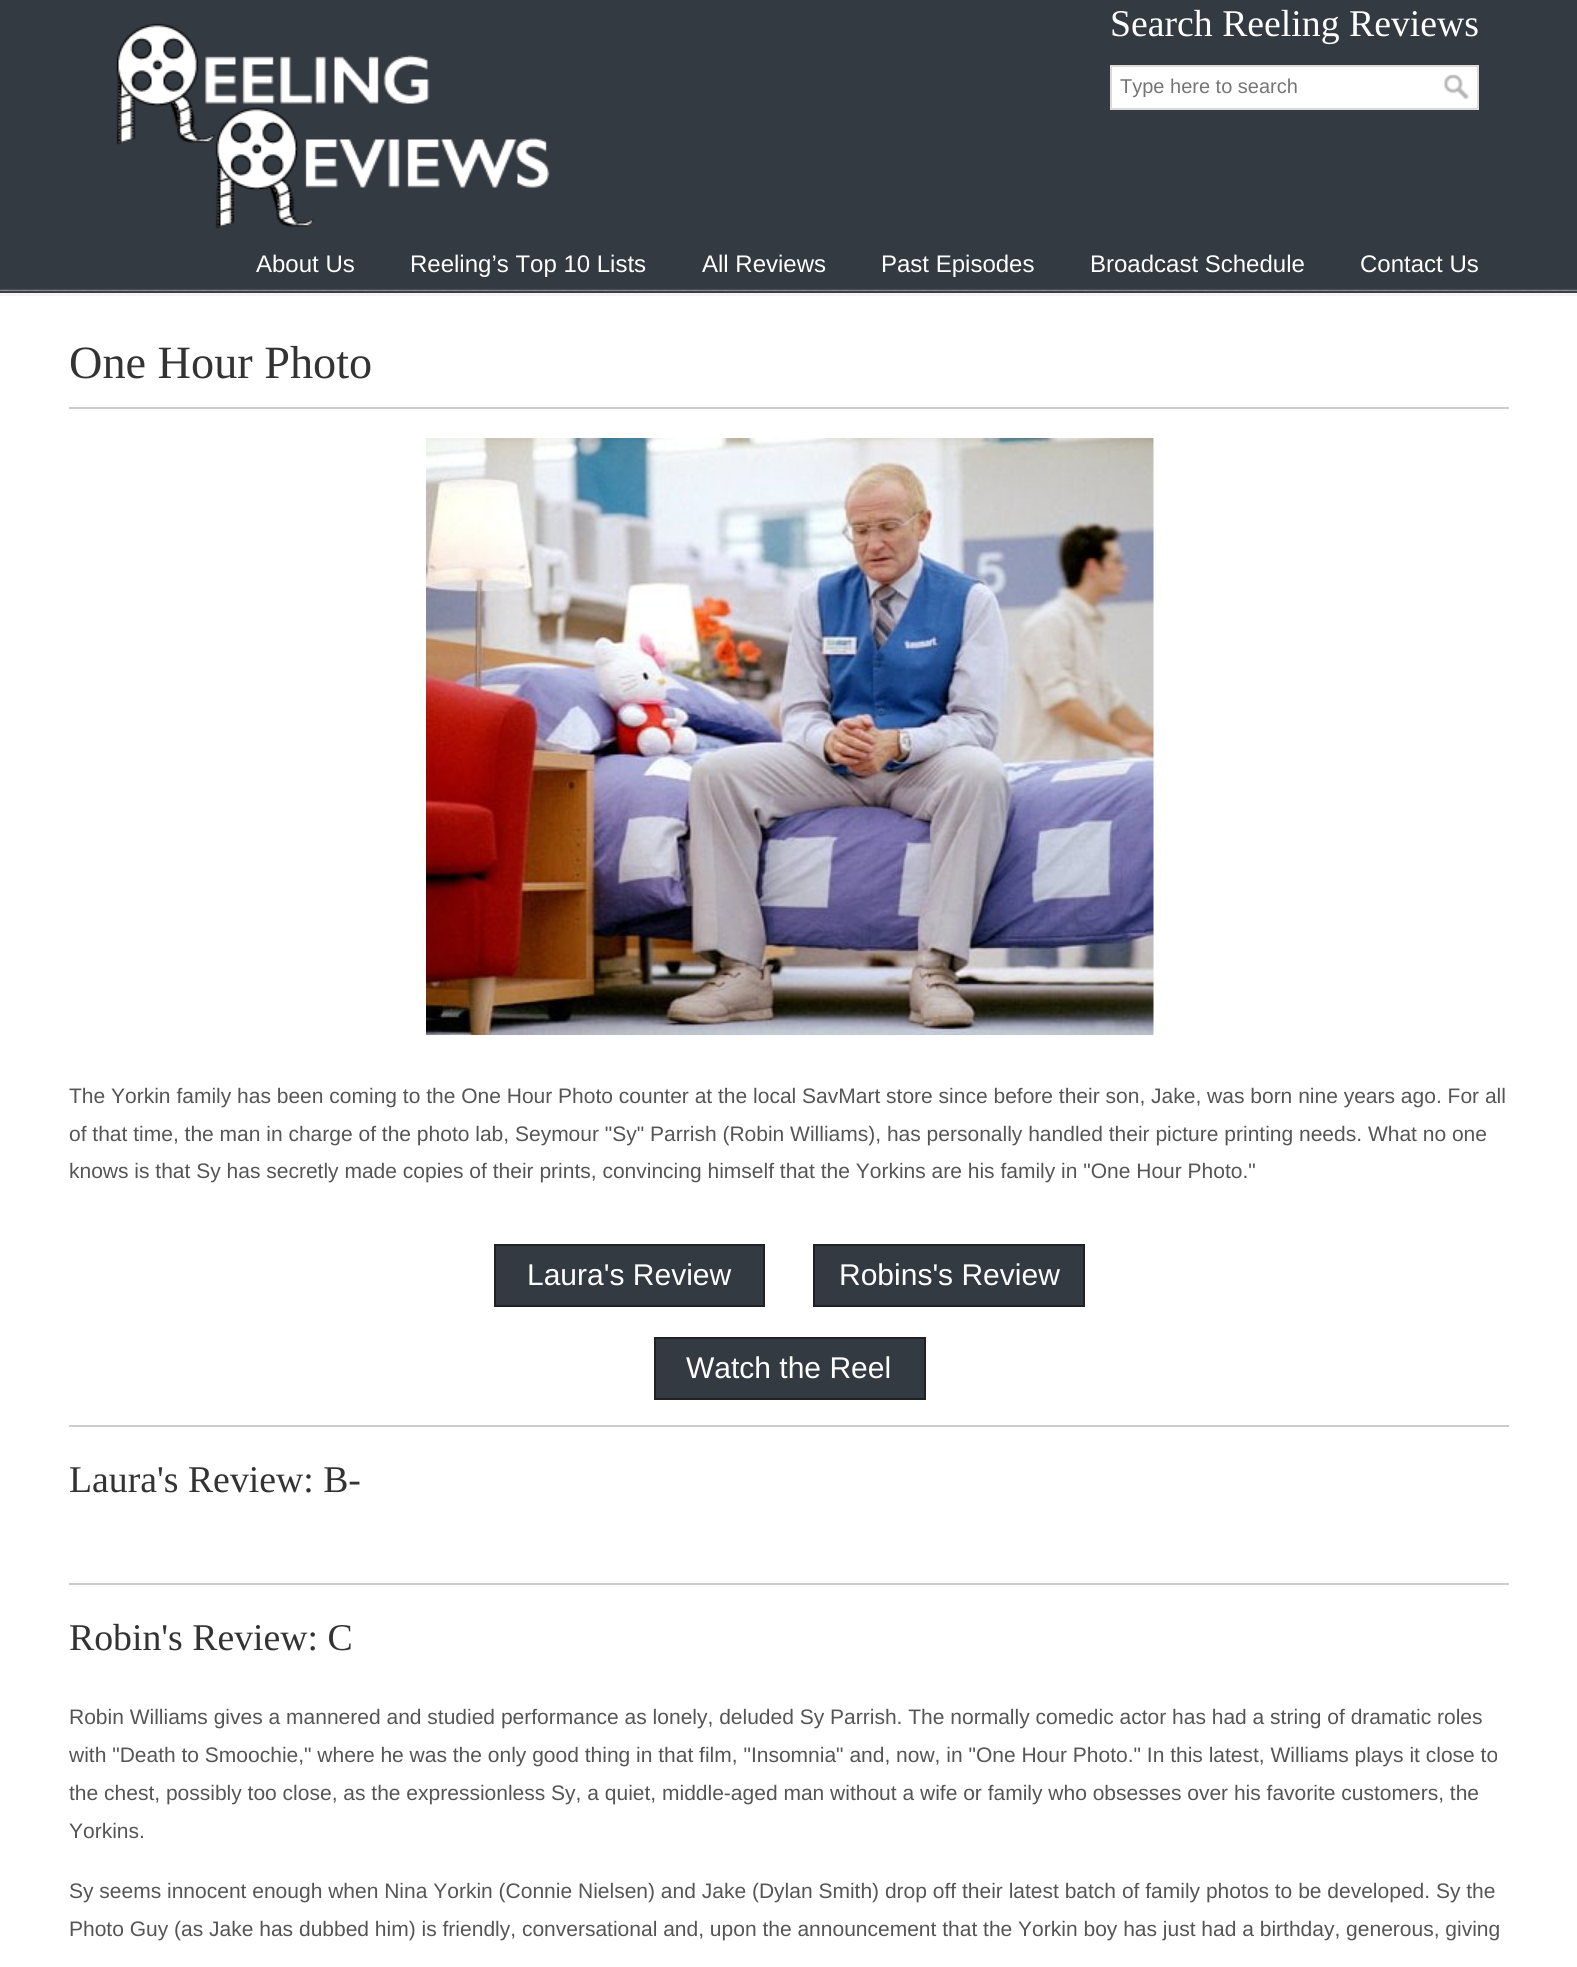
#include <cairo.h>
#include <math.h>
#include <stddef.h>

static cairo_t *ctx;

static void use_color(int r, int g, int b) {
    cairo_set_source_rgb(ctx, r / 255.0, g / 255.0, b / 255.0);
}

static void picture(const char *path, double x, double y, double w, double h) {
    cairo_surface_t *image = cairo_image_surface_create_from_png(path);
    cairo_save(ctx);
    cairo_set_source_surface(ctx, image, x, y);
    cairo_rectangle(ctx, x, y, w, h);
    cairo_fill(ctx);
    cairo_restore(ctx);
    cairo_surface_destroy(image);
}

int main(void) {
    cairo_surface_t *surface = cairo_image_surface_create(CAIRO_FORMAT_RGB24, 1577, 1967);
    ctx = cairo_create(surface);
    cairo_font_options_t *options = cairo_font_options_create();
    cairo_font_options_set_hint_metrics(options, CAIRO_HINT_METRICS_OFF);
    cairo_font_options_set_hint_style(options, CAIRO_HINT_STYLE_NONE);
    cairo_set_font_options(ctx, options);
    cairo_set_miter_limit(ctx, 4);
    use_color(255, 255, 255);
    cairo_paint(ctx);
    use_color(52, 58, 65);
    cairo_rectangle(ctx, 0, 0, 1577, 293);
    cairo_fill(ctx);
    picture("img1.png", 116, 23, 434, 206);
    cairo_select_font_face(ctx, "Liberation Serif", CAIRO_FONT_SLANT_NORMAL, CAIRO_FONT_WEIGHT_NORMAL);
    cairo_set_font_size(ctx, 37.75);
    use_color(255, 255, 255);
    cairo_move_to(ctx, 1110, 36);
    cairo_show_text(ctx, "Search Reeling Reviews");
    cairo_rectangle(ctx, 1111, 66, 367, 43);
    cairo_fill_preserve(ctx);
    use_color(221, 217, 217);
    cairo_stroke(ctx);
    cairo_select_font_face(ctx, "Liberation Sans", CAIRO_FONT_SLANT_NORMAL, CAIRO_FONT_WEIGHT_NORMAL);
    cairo_set_font_size(ctx, 20);
    use_color(117, 117, 117);
    cairo_move_to(ctx, 1120, 93);
    cairo_show_text(ctx, "Type here to search");
    picture("img2.png", 1444, 74, 25, 25);
    cairo_set_font_size(ctx, 24);
    use_color(255, 255, 255);
    cairo_move_to(ctx, 256, 272);
    cairo_show_text(ctx, "About Us");
    cairo_move_to(ctx, 410, 272);
    cairo_show_text(ctx, "Reeling’s Top 10 Lists");
    cairo_move_to(ctx, 702, 272);
    cairo_show_text(ctx, "All Reviews");
    cairo_move_to(ctx, 881, 272);
    cairo_show_text(ctx, "Past Episodes");
    cairo_move_to(ctx, 1090, 272);
    cairo_show_text(ctx, "Broadcast Schedule");
    cairo_move_to(ctx, 1360, 272);
    cairo_show_text(ctx, "Contact Us");
    picture("img3.png", 0, 289, 1577, 3);
    picture("img4.png", 0, 293, 1577, 3);
    cairo_select_font_face(ctx, "Liberation Serif", CAIRO_FONT_SLANT_NORMAL, CAIRO_FONT_WEIGHT_NORMAL);
    cairo_set_font_size(ctx, 46.25);
    use_color(51, 51, 51);
    cairo_move_to(ctx, 69, 378);
    cairo_show_text(ctx, "One Hour Photo");
    use_color(204, 204, 204);
    cairo_rectangle(ctx, 69, 407, 1440, 2);
    cairo_fill(ctx);
    picture("img5.png", 426, 438, 728, 597);
    cairo_select_font_face(ctx, "Liberation Sans", CAIRO_FONT_SLANT_NORMAL, CAIRO_FONT_WEIGHT_NORMAL);
    cairo_set_font_size(ctx, 21);
    use_color(85, 85, 85);
    cairo_move_to(ctx, 69, 1103);
    cairo_show_text(ctx, "The Yorkin family has been coming to the One Hour Photo counter at the local SavMart store since before their son, Jake, was born nine years ago. For all");
    cairo_move_to(ctx, 69, 1141);
    cairo_show_text(ctx, "of that time, the man in charge of the photo lab, Seymour \"Sy\" Parrish (Robin Williams), has personally handled their picture printing needs. What no one");
    cairo_move_to(ctx, 69, 1178);
    cairo_show_text(ctx, "knows is that Sy has secretly made copies of their prints, convincing himself that the Yorkins are his family in \"One Hour Photo.\"");
    use_color(52, 58, 65);
    cairo_rectangle(ctx, 495, 1245, 269, 61);
    cairo_fill_preserve(ctx);
    use_color(33, 33, 33);
    cairo_stroke(ctx);
    cairo_set_font_size(ctx, 30);
    use_color(255, 255, 255);
    cairo_move_to(ctx, 527, 1285);
    cairo_show_text(ctx, "Laura's Review");
    use_color(52, 58, 65);
    cairo_rectangle(ctx, 814, 1245, 270, 61);
    cairo_fill_preserve(ctx);
    use_color(33, 33, 33);
    cairo_stroke(ctx);
    use_color(255, 255, 255);
    cairo_move_to(ctx, 839, 1285);
    cairo_show_text(ctx, "Robins's Review");
    use_color(52, 58, 65);
    cairo_rectangle(ctx, 655, 1338, 270, 61);
    cairo_fill_preserve(ctx);
    use_color(33, 33, 33);
    cairo_stroke(ctx);
    use_color(255, 255, 255);
    cairo_move_to(ctx, 686, 1378);
    cairo_show_text(ctx, "Watch the Reel");
    use_color(204, 204, 204);
    cairo_rectangle(ctx, 69, 1425, 1440, 2);
    cairo_fill(ctx);
    cairo_select_font_face(ctx, "Liberation Serif", CAIRO_FONT_SLANT_NORMAL, CAIRO_FONT_WEIGHT_NORMAL);
    cairo_set_font_size(ctx, 37.75);
    use_color(51, 51, 51);
    cairo_move_to(ctx, 69, 1492);
    cairo_show_text(ctx, "Laura's Review: B-");
    use_color(204, 204, 204);
    cairo_rectangle(ctx, 69, 1583, 1440, 2);
    cairo_fill(ctx);
    use_color(51, 51, 51);
    cairo_move_to(ctx, 69, 1650);
    cairo_show_text(ctx, "Robin's Review: C");
    cairo_select_font_face(ctx, "Liberation Sans", CAIRO_FONT_SLANT_NORMAL, CAIRO_FONT_WEIGHT_NORMAL);
    cairo_set_font_size(ctx, 21);
    use_color(85, 85, 85);
    cairo_move_to(ctx, 69, 1724);
    cairo_show_text(ctx, "Robin Williams gives a mannered and studied performance as lonely, deluded Sy Parrish. The normally comedic actor has had a string of dramatic roles");
    cairo_move_to(ctx, 69, 1762);
    cairo_show_text(ctx, "with \"Death to Smoochie,\" where he was the only good thing in that film, \"Insomnia\" and, now, in \"One Hour Photo.\" In this latest, Williams plays it close to");
    cairo_move_to(ctx, 69, 1800);
    cairo_show_text(ctx, "the chest, possibly too close, as the expressionless Sy, a quiet, middle-aged man without a wife or family who obsesses over his favorite customers, the");
    cairo_move_to(ctx, 69, 1838);
    cairo_show_text(ctx, "Yorkins.");
    cairo_move_to(ctx, 69, 1898);
    cairo_show_text(ctx, "Sy seems innocent enough when Nina Yorkin (Connie Nielsen) and Jake (Dylan Smith) drop off their latest batch of family photos to be developed. Sy the");
    cairo_move_to(ctx, 69, 1936);
    cairo_show_text(ctx, "Photo Guy (as Jake has dubbed him) is friendly, conversational and, upon the announcement that the Yorkin boy has just had a birthday, generous, giving");
    cairo_surface_write_to_png(surface, "result.png");
    cairo_font_options_destroy(options);
    cairo_destroy(ctx);
    cairo_surface_destroy(surface);
    return 0;
}
